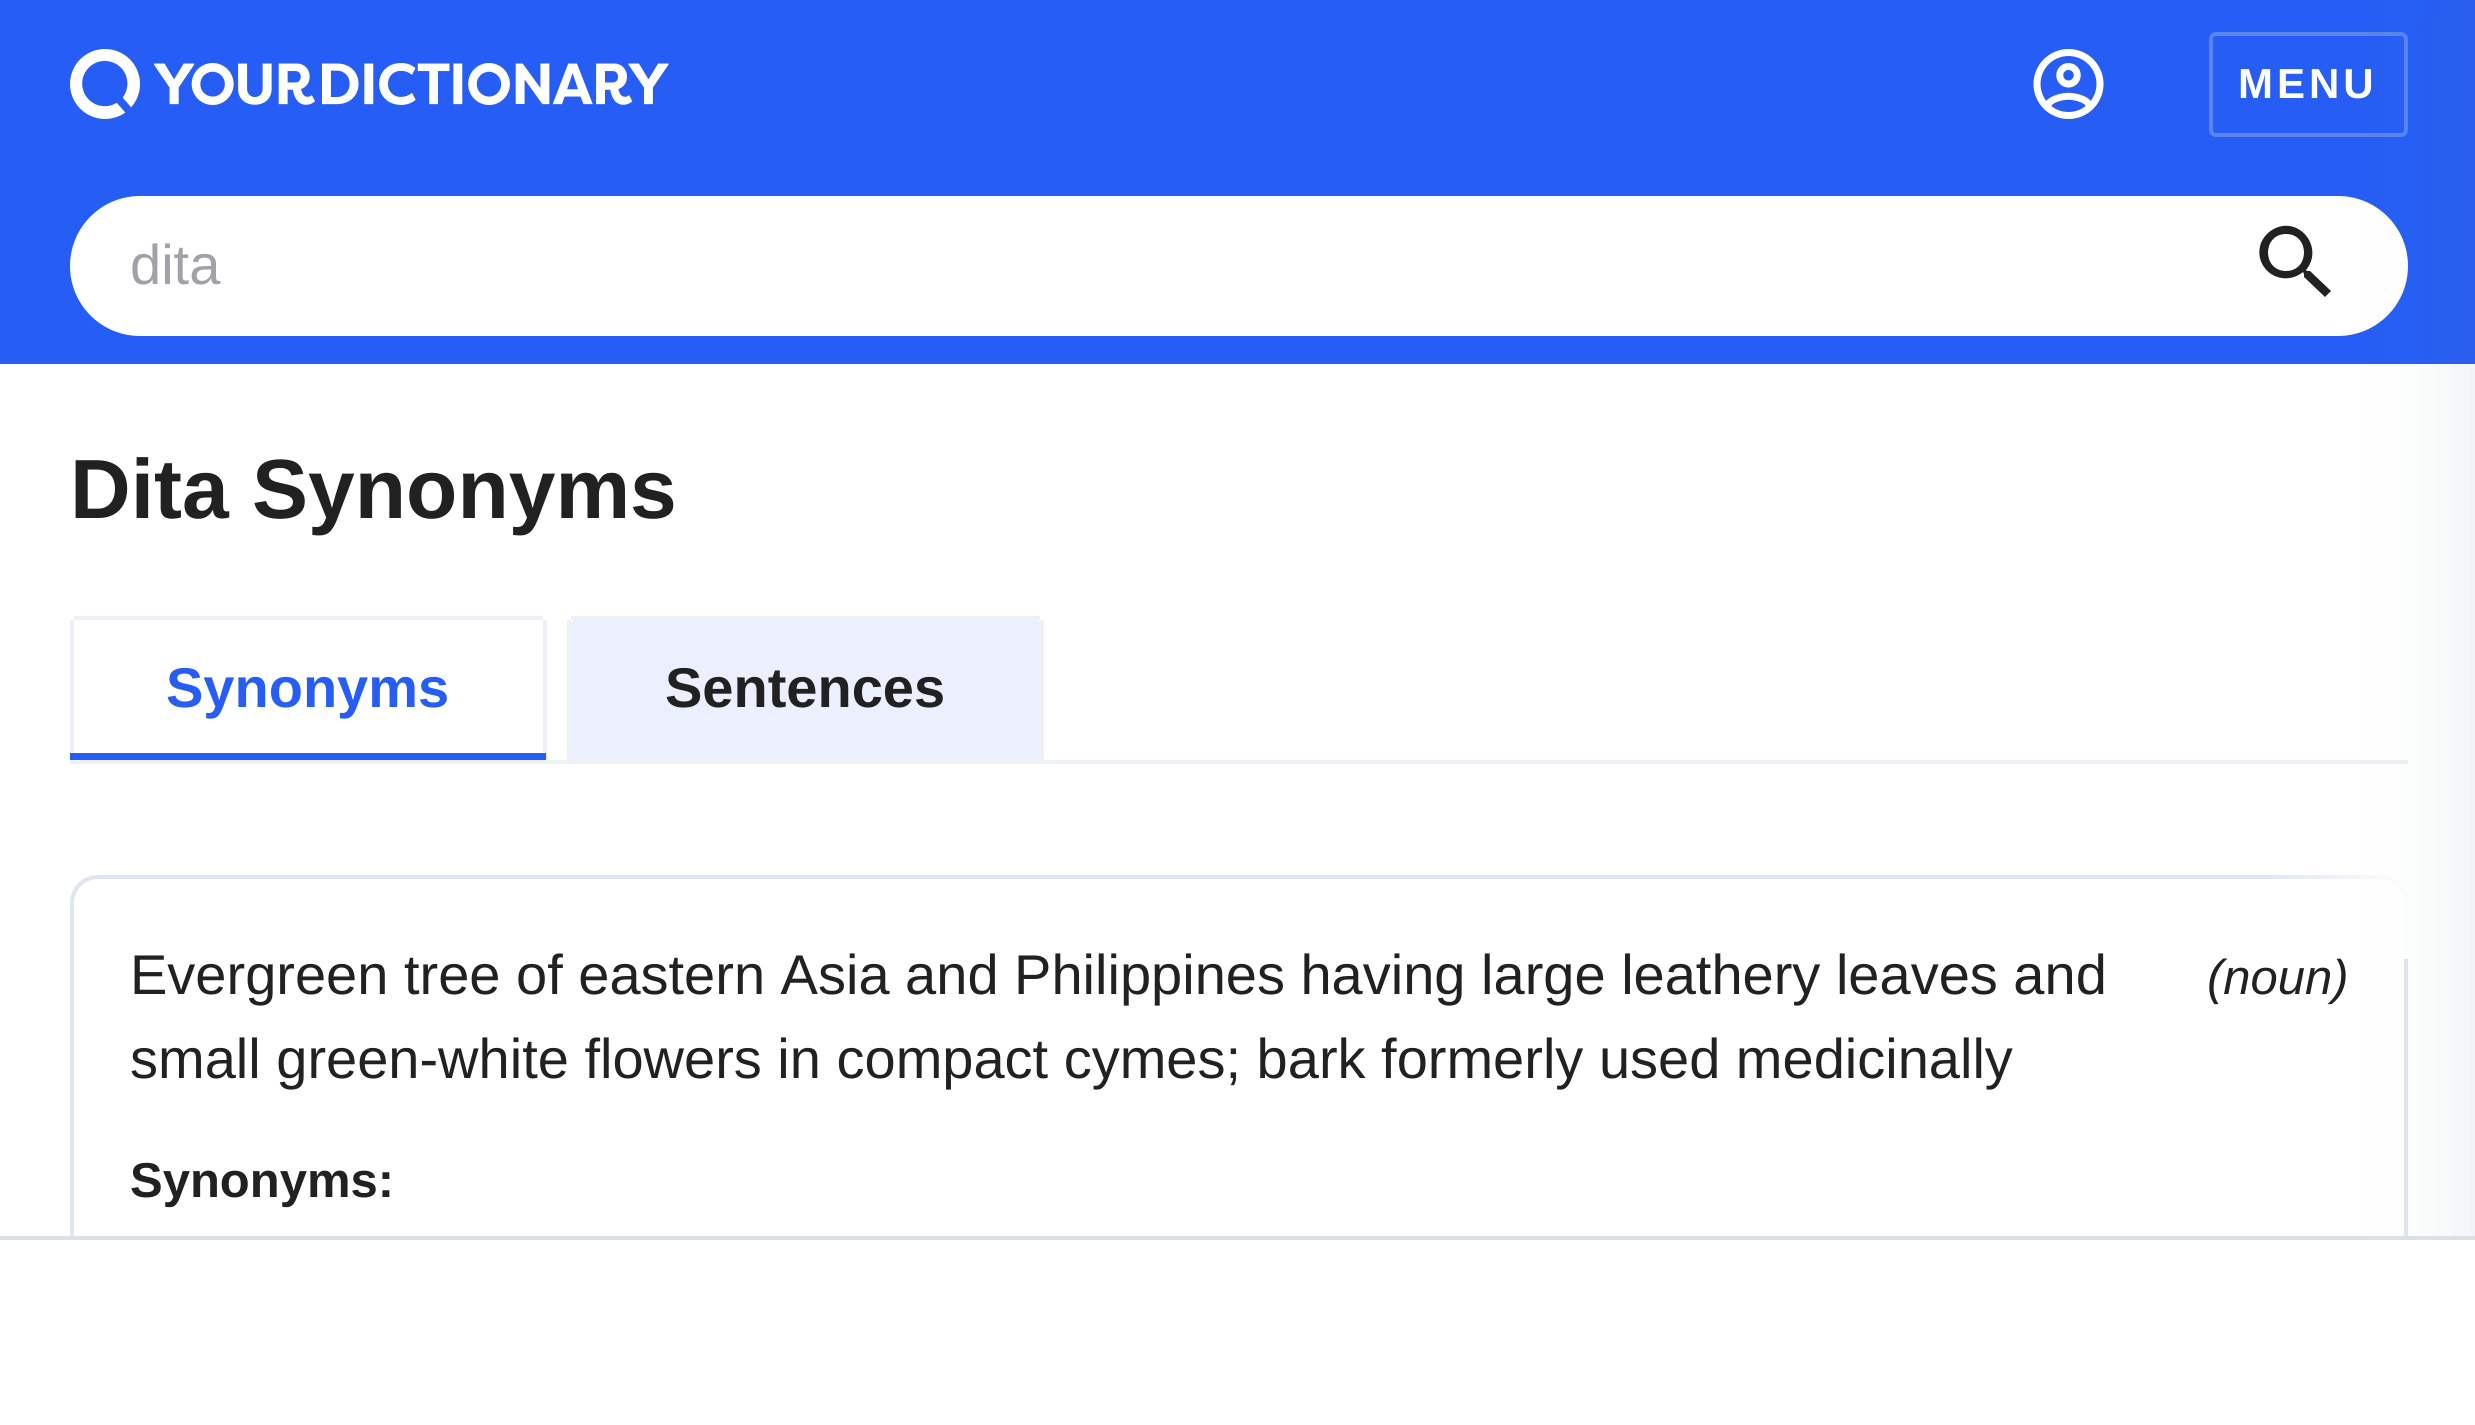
#include <cairo.h>
#include <math.h>
#include <stddef.h>

static cairo_t *ctx;

static void use_color(int r, int g, int b) {
    cairo_set_source_rgb(ctx, r / 255.0, g / 255.0, b / 255.0);
}

static void spaced_text(double x, double y, const char *s, double letter, double word) {
    cairo_move_to(ctx, x, y);
    while (*s) {
        char ch[5] = {0};
        int n = 0;
        do ch[n++] = *s++; while ((*s & 0xC0) == 0x80);
        cairo_show_text(ctx, ch);
        cairo_rel_move_to(ctx, letter + word * (*ch == ' '), 0);
    }
}

static void round_rect(double x, double y, double w, double h, double r) {
    cairo_new_sub_path(ctx);
    cairo_arc(ctx, x + w - r, y + h - r, r, 0, M_PI / 2);
    cairo_arc(ctx, x + r, y + h - r, r, M_PI / 2, M_PI);
    cairo_arc(ctx, x + r, y + r, r, M_PI, 1.5 * M_PI);
    cairo_arc(ctx, x + w - r, y + r, r, 1.5 * M_PI, 2 * M_PI);
    cairo_close_path(ctx);
}

static void shadow(double x, double y, double w, double h, double r, double blur, double alpha) {
    cairo_push_group_with_content(ctx, CAIRO_CONTENT_ALPHA);
    cairo_set_operator(ctx, CAIRO_OPERATOR_SOURCE);
    for (int i = 15; i >= -15 && fmin(w, h) + blur * i / 3 > 0; i -= 2) {
        double e = blur * i / 6;
        cairo_set_source_rgba(ctx, 0, 0, 0, alpha * erfc((i - 1) / 8.5) / 2);
        round_rect(x - e, y - e, w + 2 * e, h + 2 * e, fmax(0, fmin(r + e + blur * .6, fmin(w, h) / 2 + e)));
        cairo_fill(ctx);
    }
    cairo_pattern_t *soft = cairo_pop_group(ctx);
    cairo_mask(ctx, soft);
    cairo_pattern_destroy(soft);
}

static void picture(const char *path, double x, double y, double w, double h) {
    cairo_surface_t *image = cairo_image_surface_create_from_png(path);
    cairo_save(ctx);
    cairo_set_source_surface(ctx, image, x, y);
    cairo_rectangle(ctx, x, y, w, h);
    cairo_fill(ctx);
    cairo_restore(ctx);
    cairo_surface_destroy(image);
}

int main(void) {
    cairo_surface_t *surface = cairo_image_surface_create(CAIRO_FORMAT_RGB24, 2475, 1425);
    ctx = cairo_create(surface);
    cairo_font_options_t *options = cairo_font_options_create();
    cairo_font_options_set_hint_metrics(options, CAIRO_HINT_METRICS_OFF);
    cairo_font_options_set_hint_style(options, CAIRO_HINT_STYLE_NONE);
    cairo_set_font_options(ctx, options);
    cairo_set_miter_limit(ctx, 4);
    cairo_pattern_t *gradient;
    use_color(255, 255, 255);
    cairo_paint(ctx);
    use_color(38, 94, 245);
    cairo_rectangle(ctx, 0, 0, 2475, 364);
    cairo_fill(ctx);
    picture("img1.png", 70, 49, 599, 70);
    picture("img2.png", 2033, 49, 71, 70);
    round_rect(2211, 34, 195, 101, 5);
    use_color(89, 131, 238);
    cairo_set_line_width(ctx, 4);
    cairo_stroke(ctx);
    use_color(255, 255, 255);
    round_rect(73.5, 199.5, 2331, 133, 66.5);
    cairo_fill_preserve(ctx);
    cairo_set_line_width(ctx, 7);
    cairo_stroke(ctx);
    use_color(33, 33, 33);
    cairo_new_path(ctx);
    cairo_move_to(ctx, 2310, 271);
    cairo_line_to(ctx, 2307, 271);
    cairo_line_to(ctx, 2306, 270);
    cairo_curve_to(ctx, 2325, 247, 2298, 214, 2272, 230);
    cairo_curve_to(ctx, 2267, 233, 2263, 238, 2261, 243);
    cairo_curve_to(ctx, 2258, 251, 2259, 260, 2264, 267);
    cairo_curve_to(ctx, 2273, 280, 2291, 282, 2303, 272);
    cairo_line_to(ctx, 2304, 274);
    cairo_line_to(ctx, 2304, 277);
    cairo_line_to(ctx, 2325, 297);
    cairo_line_to(ctx, 2331, 291);
    cairo_close_path(ctx);
    cairo_move_to(ctx, 2286, 271);
    cairo_curve_to(ctx, 2262, 271, 2262, 234, 2286, 234);
    cairo_curve_to(ctx, 2310, 234, 2310, 271, 2286, 271);
    cairo_close_path(ctx);
    cairo_fill(ctx);
    use_color(237, 241, 246);
    cairo_rectangle(ctx, 70, 760, 2338, 4);
    cairo_fill(ctx);
    round_rect(72, 877, 2334, 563, 26);
    use_color(223, 230, 239);
    cairo_set_line_width(ctx, 4);
    cairo_stroke(ctx);
    cairo_select_font_face(ctx, "Liberation Sans", CAIRO_FONT_SLANT_ITALIC, CAIRO_FONT_WEIGHT_NORMAL);
    cairo_set_font_size(ctx, 49);
    use_color(33, 33, 33);
    cairo_move_to(ctx, 2207, 994);
    cairo_show_text(ctx, "(noun)");
    gradient = cairo_pattern_create_linear(2258, 886, 2415, 886);
    cairo_pattern_add_color_stop_rgba(gradient, 0, 1, 1, 1, 0);
    cairo_pattern_add_color_stop_rgba(gradient, 1, 1, 1, 1, 1);
    cairo_set_source(ctx, gradient);
    cairo_pattern_destroy(gradient);
    cairo_rectangle(ctx, 2271, 875, 137, 84);
    cairo_fill(ctx);
    use_color(84, 110, 122);
    shadow(2461, 4, 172, 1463, 0, 52.5, 0.12);
    cairo_select_font_face(ctx, "Liberation Sans", CAIRO_FONT_SLANT_NORMAL, CAIRO_FONT_WEIGHT_BOLD);
    cairo_set_font_size(ctx, 42);
    use_color(255, 255, 255);
    spaced_text(2238, 98, "MENU", 4, 0);
    cairo_select_font_face(ctx, "Liberation Sans", CAIRO_FONT_SLANT_NORMAL, CAIRO_FONT_WEIGHT_NORMAL);
    cairo_set_font_size(ctx, 56);
    use_color(161, 161, 170);
    cairo_move_to(ctx, 130, 284);
    cairo_show_text(ctx, "dita");
    cairo_select_font_face(ctx, "Liberation Sans", CAIRO_FONT_SLANT_NORMAL, CAIRO_FONT_WEIGHT_BOLD);
    cairo_set_font_size(ctx, 84);
    use_color(33, 33, 33);
    cairo_move_to(ctx, 70, 518);
    cairo_show_text(ctx, "Dita Synonyms");
    use_color(237, 241, 246);
    cairo_rectangle(ctx, 74, 616, 469, 4);
    cairo_fill(ctx);
    cairo_rectangle(ctx, 543, 620, 4, 140);
    cairo_fill(ctx);
    cairo_rectangle(ctx, 70, 620, 4, 140);
    cairo_fill(ctx);
    cairo_set_font_size(ctx, 56);
    use_color(38, 94, 245);
    cairo_move_to(ctx, 166, 707);
    cairo_show_text(ctx, "Synonyms");
    cairo_rectangle(ctx, 70, 753, 476, 7);
    cairo_fill(ctx);
    use_color(236, 240, 254);
    cairo_new_path(ctx);
    cairo_move_to(ctx, 575, 620);
    cairo_line_to(ctx, 1036, 620);
    cairo_curve_to(ctx, 1038, 620, 1040, 622, 1040, 624);
    cairo_line_to(ctx, 1040, 760);
    cairo_line_to(ctx, 571, 760);
    cairo_line_to(ctx, 571, 624);
    cairo_curve_to(ctx, 571, 622, 573, 620, 575, 620);
    cairo_close_path(ctx);
    cairo_fill(ctx);
    use_color(237, 241, 246);
    cairo_rectangle(ctx, 571, 616, 469, 4);
    cairo_fill(ctx);
    cairo_rectangle(ctx, 1040, 620, 4, 140);
    cairo_fill(ctx);
    cairo_rectangle(ctx, 567, 620, 4, 140);
    cairo_fill(ctx);
    use_color(33, 33, 33);
    cairo_move_to(ctx, 665, 707);
    cairo_show_text(ctx, "Sentences");
    cairo_select_font_face(ctx, "Liberation Sans", CAIRO_FONT_SLANT_NORMAL, CAIRO_FONT_WEIGHT_NORMAL);
    cairo_move_to(ctx, 130, 994);
    cairo_show_text(ctx, "Evergreen tree of eastern Asia and Philippines having large leathery leaves and");
    cairo_move_to(ctx, 130, 1078);
    cairo_show_text(ctx, "small green-white flowers in compact cymes; bark formerly used medicinally");
    cairo_select_font_face(ctx, "Liberation Sans", CAIRO_FONT_SLANT_NORMAL, CAIRO_FONT_WEIGHT_BOLD);
    cairo_set_font_size(ctx, 49);
    cairo_move_to(ctx, 130, 1197);
    cairo_show_text(ctx, "Synonyms:");
    use_color(255, 255, 255);
    cairo_rectangle(ctx, 70, 1240, 2405, 185);
    cairo_fill(ctx);
    use_color(218, 224, 227);
    cairo_rectangle(ctx, 0, 1236, 2475, 4);
    cairo_fill(ctx);
    cairo_surface_write_to_png(surface, "result.png");
    cairo_font_options_destroy(options);
    cairo_destroy(ctx);
    cairo_surface_destroy(surface);
    return 0;
}
